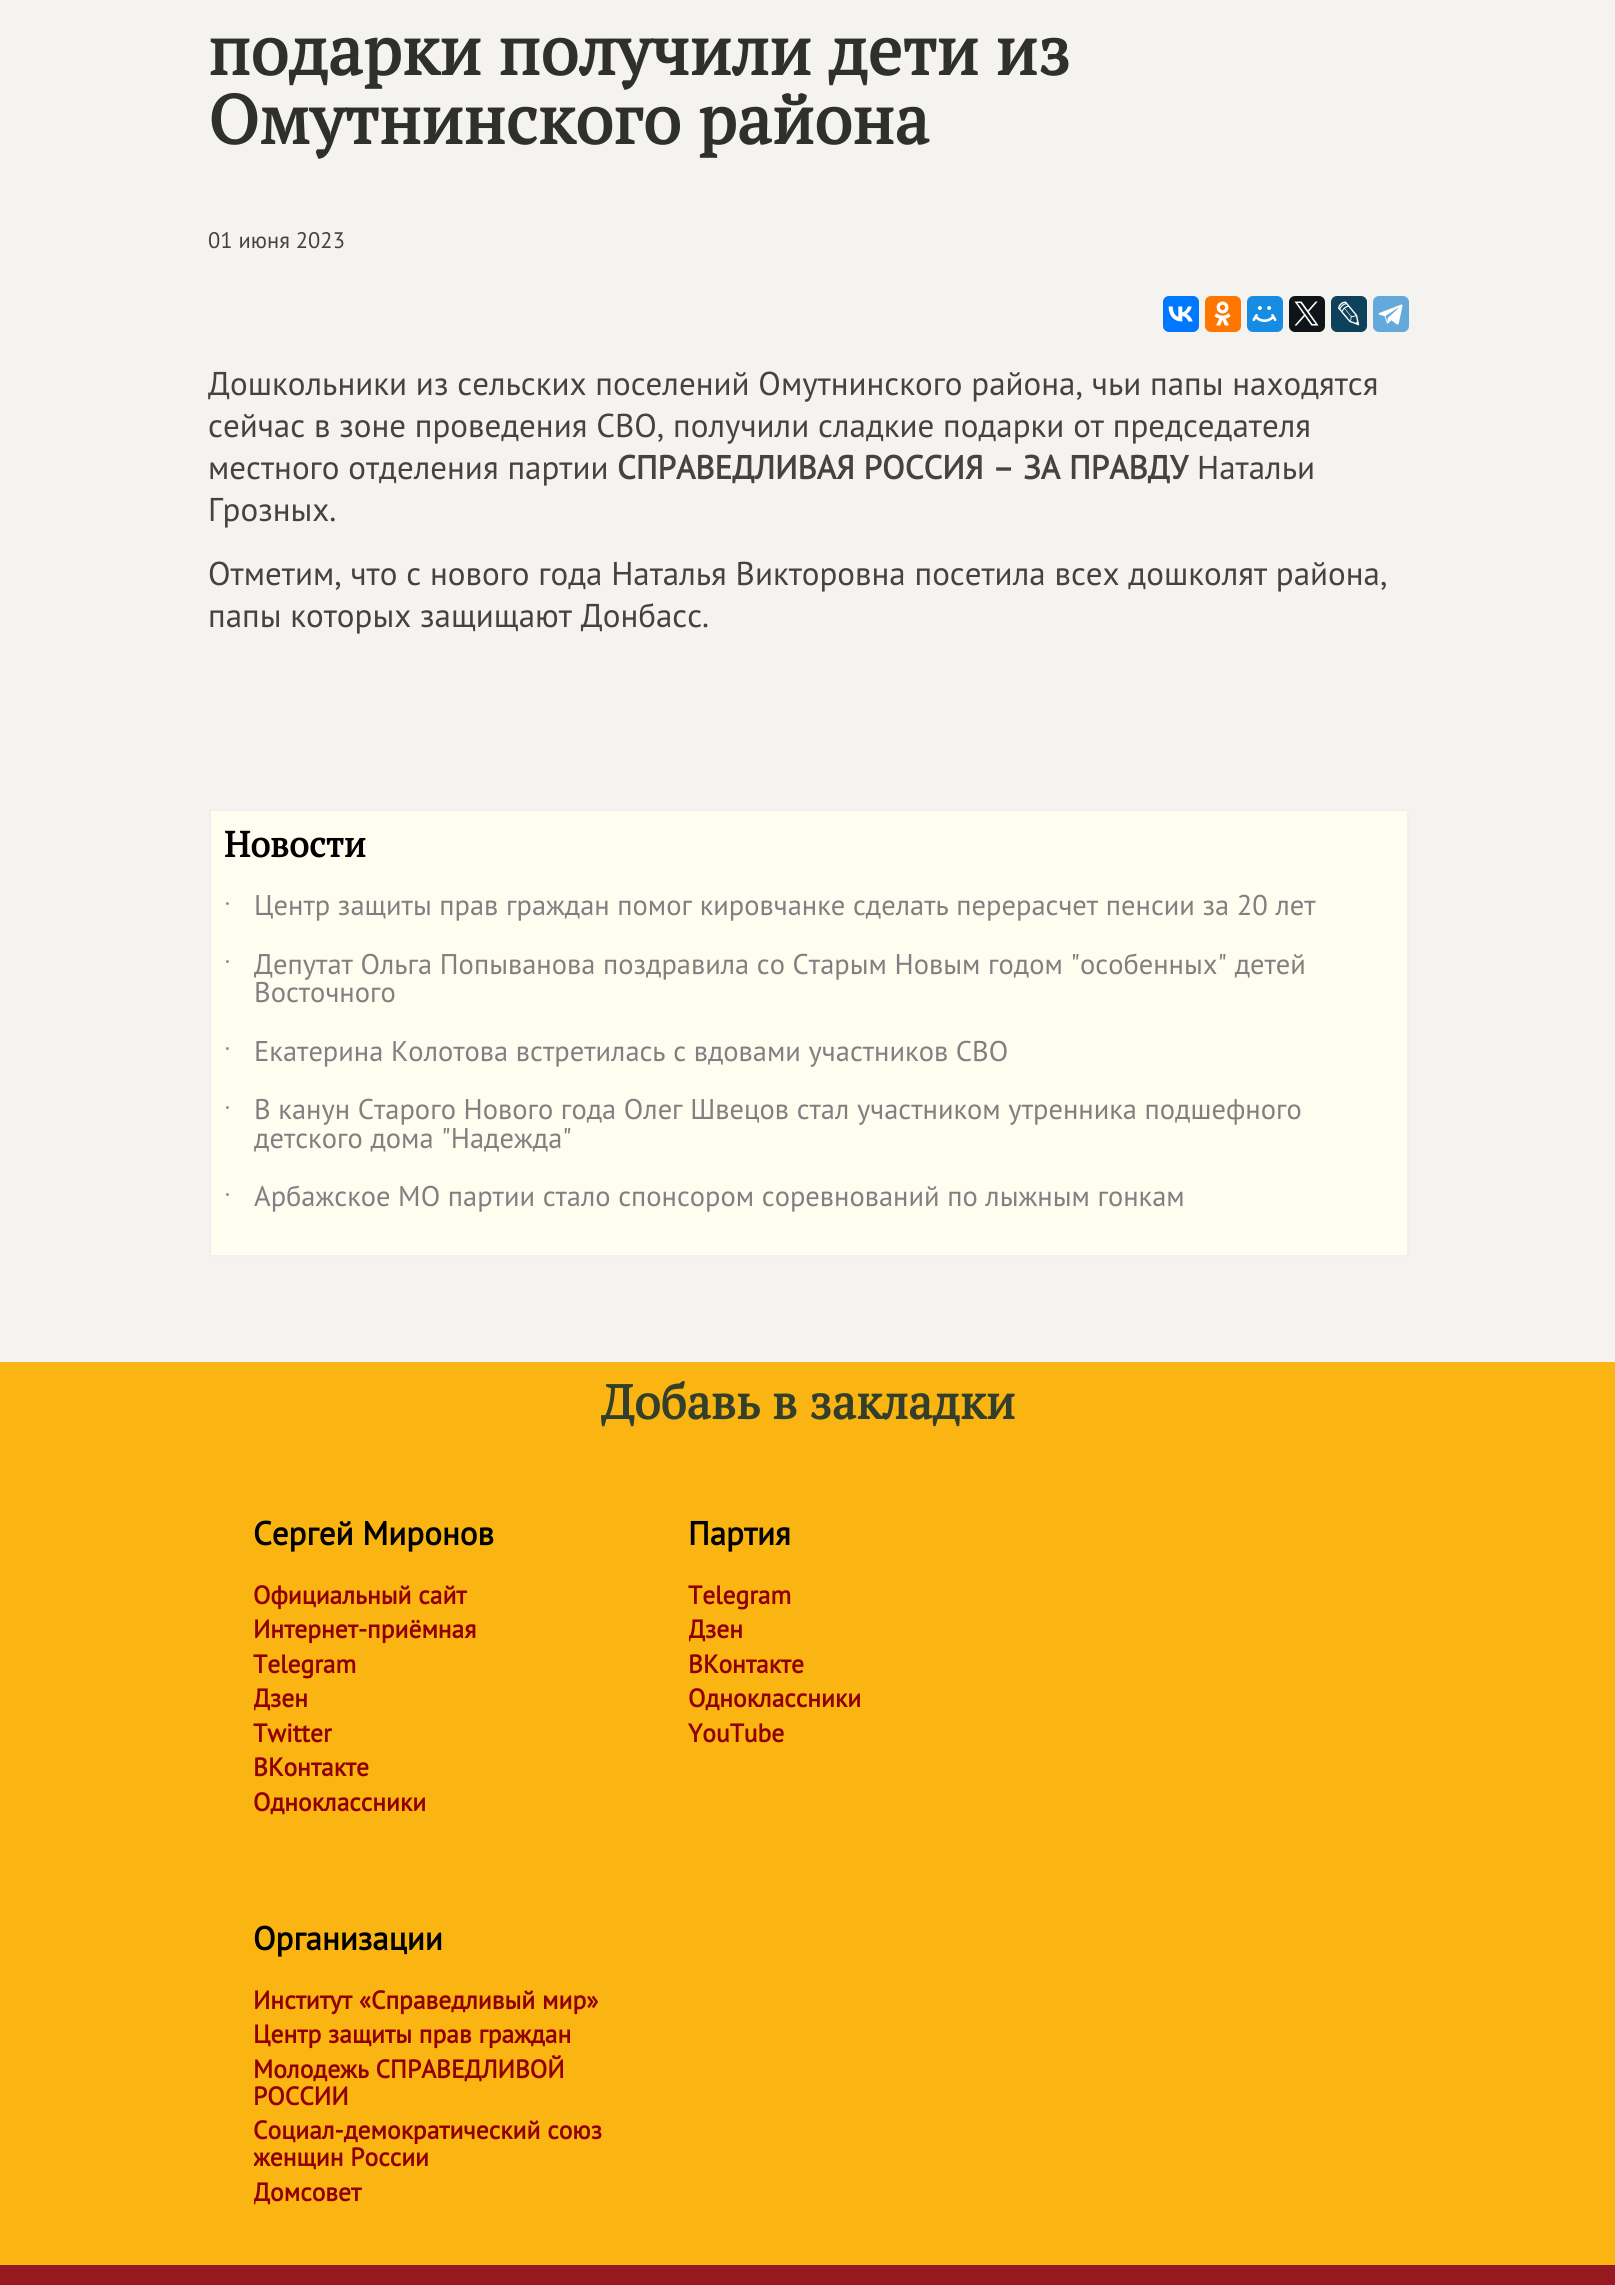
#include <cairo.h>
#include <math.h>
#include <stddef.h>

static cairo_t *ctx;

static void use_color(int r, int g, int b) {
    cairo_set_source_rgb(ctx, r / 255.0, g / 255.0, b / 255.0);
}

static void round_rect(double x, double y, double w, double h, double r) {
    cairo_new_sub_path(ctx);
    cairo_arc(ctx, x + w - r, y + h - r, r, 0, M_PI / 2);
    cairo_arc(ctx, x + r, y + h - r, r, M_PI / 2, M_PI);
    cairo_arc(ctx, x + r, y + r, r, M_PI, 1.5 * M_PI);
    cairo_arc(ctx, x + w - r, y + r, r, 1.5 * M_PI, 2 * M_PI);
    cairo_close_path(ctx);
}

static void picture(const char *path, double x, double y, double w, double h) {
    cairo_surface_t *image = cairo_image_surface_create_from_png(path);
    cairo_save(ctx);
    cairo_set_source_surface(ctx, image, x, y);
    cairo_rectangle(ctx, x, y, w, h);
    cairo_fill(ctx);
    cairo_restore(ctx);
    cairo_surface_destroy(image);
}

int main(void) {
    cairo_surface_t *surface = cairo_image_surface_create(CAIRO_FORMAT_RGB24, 1615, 2285);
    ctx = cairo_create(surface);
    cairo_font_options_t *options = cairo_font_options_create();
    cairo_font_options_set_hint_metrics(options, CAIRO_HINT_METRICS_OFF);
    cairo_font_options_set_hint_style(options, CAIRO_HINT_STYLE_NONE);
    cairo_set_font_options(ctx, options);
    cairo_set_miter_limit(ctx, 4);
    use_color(244, 243, 239);
    cairo_paint(ctx);
    cairo_select_font_face(ctx, "PT Serif", CAIRO_FONT_SLANT_NORMAL, CAIRO_FONT_WEIGHT_BOLD);
    cairo_set_font_size(ctx, 69);
    use_color(47, 47, 45);
    cairo_move_to(ctx, 208, 75);
    cairo_show_text(ctx, "подарки получили дети из");
    cairo_move_to(ctx, 208, 144);
    cairo_show_text(ctx, "Омутнинского района");
    cairo_select_font_face(ctx, "PT Sans", CAIRO_FONT_SLANT_NORMAL, CAIRO_FONT_WEIGHT_NORMAL);
    cairo_set_font_size(ctx, 22.5);
    use_color(68, 67, 63);
    cairo_move_to(ctx, 208, 248);
    cairo_show_text(ctx, "01 июня 2023");
    use_color(0, 119, 255);
    round_rect(1163, 296, 36, 36, 6);
    cairo_fill(ctx);
    picture("img1.png", 1168, 306, 25, 16);
    use_color(255, 119, 0);
    round_rect(1205, 296, 36, 36, 6);
    cairo_fill(ctx);
    picture("img2.png", 1214, 301, 17, 25);
    use_color(22, 141, 226);
    round_rect(1247, 296, 36, 36, 6);
    cairo_fill(ctx);
    picture("img3.png", 1252, 306, 25, 16);
    use_color(15, 20, 25);
    round_rect(1289, 296, 36, 36, 6);
    cairo_fill(ctx);
    picture("img4.png", 1294, 301, 25, 25);
    use_color(13, 66, 90);
    round_rect(1331, 296, 36, 36, 6);
    cairo_fill(ctx);
    picture("img5.png", 1338, 301, 22, 25);
    use_color(100, 169, 220);
    round_rect(1373, 296, 36, 36, 6);
    cairo_fill(ctx);
    picture("img6.png", 1378, 304, 25, 21);
    cairo_set_font_size(ctx, 33);
    use_color(68, 67, 63);
    cairo_move_to(ctx, 208, 395);
    cairo_show_text(ctx, "Дошкольники из сельских поселений Омутнинского района, чьи папы находятся");
    cairo_move_to(ctx, 208, 437);
    cairo_show_text(ctx, "сейчас в зоне проведения СВО, получили сладкие подарки от председателя");
    cairo_move_to(ctx, 208, 479);
    cairo_show_text(ctx, "местного отделения партии");
    cairo_select_font_face(ctx, "PT Sans", CAIRO_FONT_SLANT_NORMAL, CAIRO_FONT_WEIGHT_BOLD);
    cairo_move_to(ctx, 617, 479);
    cairo_show_text(ctx, "СПРАВЕДЛИВАЯ РОССИЯ – ЗА ПРАВДУ");
    cairo_select_font_face(ctx, "PT Sans", CAIRO_FONT_SLANT_NORMAL, CAIRO_FONT_WEIGHT_NORMAL);
    cairo_move_to(ctx, 1197, 479);
    cairo_show_text(ctx, "Натальи");
    cairo_move_to(ctx, 208, 521);
    cairo_show_text(ctx, "Грозных.");
    cairo_move_to(ctx, 208, 585);
    cairo_show_text(ctx, "Отметим, что с нового года Наталья Викторовна посетила всех дошколят района,");
    cairo_move_to(ctx, 208, 627);
    cairo_show_text(ctx, "папы которых защищают Донбасс.");
    use_color(254, 253, 240);
    cairo_rectangle(ctx, 210, 810, 1198, 446);
    cairo_fill_preserve(ctx);
    use_color(240, 240, 240);
    cairo_stroke(ctx);
    cairo_select_font_face(ctx, "PT Serif", CAIRO_FONT_SLANT_NORMAL, CAIRO_FONT_WEIGHT_BOLD);
    cairo_set_font_size(ctx, 36);
    use_color(0, 0, 0);
    cairo_move_to(ctx, 224, 857);
    cairo_show_text(ctx, "Новости");
    cairo_select_font_face(ctx, "Liberation Sans", CAIRO_FONT_SLANT_NORMAL, CAIRO_FONT_WEIGHT_NORMAL);
    cairo_set_font_size(ctx, 28.5);
    use_color(128, 128, 128);
    cairo_move_to(ctx, 224, 923);
    cairo_show_text(ctx, "˙");
    cairo_select_font_face(ctx, "PT Sans", CAIRO_FONT_SLANT_NORMAL, CAIRO_FONT_WEIGHT_NORMAL);
    cairo_move_to(ctx, 254, 915);
    cairo_show_text(ctx, "Центр защиты прав граждан помог кировчанке сделать перерасчет пенсии за 20 лет");
    cairo_select_font_face(ctx, "Liberation Sans", CAIRO_FONT_SLANT_NORMAL, CAIRO_FONT_WEIGHT_NORMAL);
    cairo_move_to(ctx, 224, 981);
    cairo_show_text(ctx, "˙");
    cairo_select_font_face(ctx, "PT Sans", CAIRO_FONT_SLANT_NORMAL, CAIRO_FONT_WEIGHT_NORMAL);
    cairo_move_to(ctx, 254, 974);
    cairo_show_text(ctx, "Депутат Ольга Попыванова поздравила со Старым Новым годом \"особенных\" детей");
    cairo_move_to(ctx, 254, 1002);
    cairo_show_text(ctx, "Восточного");
    cairo_select_font_face(ctx, "Liberation Sans", CAIRO_FONT_SLANT_NORMAL, CAIRO_FONT_WEIGHT_NORMAL);
    cairo_move_to(ctx, 224, 1068);
    cairo_show_text(ctx, "˙");
    cairo_select_font_face(ctx, "PT Sans", CAIRO_FONT_SLANT_NORMAL, CAIRO_FONT_WEIGHT_NORMAL);
    cairo_move_to(ctx, 254, 1061);
    cairo_show_text(ctx, "Екатерина Колотова встретилась с вдовами участников СВО");
    cairo_select_font_face(ctx, "Liberation Sans", CAIRO_FONT_SLANT_NORMAL, CAIRO_FONT_WEIGHT_NORMAL);
    cairo_move_to(ctx, 224, 1127);
    cairo_show_text(ctx, "˙");
    cairo_select_font_face(ctx, "PT Sans", CAIRO_FONT_SLANT_NORMAL, CAIRO_FONT_WEIGHT_NORMAL);
    cairo_move_to(ctx, 254, 1119);
    cairo_show_text(ctx, "В канун Старого Нового года Олег Швецов стал участником утренника подшефного");
    cairo_move_to(ctx, 254, 1148);
    cairo_show_text(ctx, "детского дома \"Надежда\"");
    cairo_select_font_face(ctx, "Liberation Sans", CAIRO_FONT_SLANT_NORMAL, CAIRO_FONT_WEIGHT_NORMAL);
    cairo_move_to(ctx, 224, 1214);
    cairo_show_text(ctx, "˙");
    cairo_select_font_face(ctx, "PT Sans", CAIRO_FONT_SLANT_NORMAL, CAIRO_FONT_WEIGHT_NORMAL);
    cairo_move_to(ctx, 254, 1206);
    cairo_show_text(ctx, "Арбажское МО партии стало спонсором соревнований по лыжным гонкам");
    use_color(250, 181, 18);
    cairo_rectangle(ctx, 0, 1362, 1615, 903);
    cairo_fill(ctx);
    cairo_select_font_face(ctx, "PT Serif", CAIRO_FONT_SLANT_NORMAL, CAIRO_FONT_WEIGHT_BOLD);
    cairo_set_font_size(ctx, 48);
    use_color(51, 63, 43);
    cairo_move_to(ctx, 601, 1419);
    cairo_show_text(ctx, "Добавь в закладки");
    cairo_select_font_face(ctx, "PT Sans", CAIRO_FONT_SLANT_NORMAL, CAIRO_FONT_WEIGHT_BOLD);
    cairo_set_font_size(ctx, 33);
    use_color(0, 0, 0);
    cairo_move_to(ctx, 253, 1545);
    cairo_show_text(ctx, "Сергей Миронов");
    cairo_set_font_size(ctx, 25.5);
    use_color(144, 0, 0);
    cairo_move_to(ctx, 253, 1604);
    cairo_show_text(ctx, "Официальный сайт");
    cairo_move_to(ctx, 253, 1638);
    cairo_show_text(ctx, "Интернет-приёмная");
    cairo_move_to(ctx, 253, 1673);
    cairo_show_text(ctx, "Telegram");
    cairo_save(ctx);
    cairo_rectangle(ctx, 254, 1485, 375, 345);
    cairo_clip(ctx);
    cairo_move_to(ctx, 253, 1707);
    cairo_show_text(ctx, "Дзен");
    cairo_restore(ctx);
    cairo_move_to(ctx, 253, 1742);
    cairo_show_text(ctx, "Twitter");
    cairo_move_to(ctx, 253, 1776);
    cairo_show_text(ctx, "ВКонтакте");
    cairo_move_to(ctx, 253, 1811);
    cairo_show_text(ctx, "Одноклассники");
    cairo_set_font_size(ctx, 33);
    use_color(0, 0, 0);
    cairo_move_to(ctx, 688, 1545);
    cairo_show_text(ctx, "Партия");
    cairo_set_font_size(ctx, 25.5);
    use_color(144, 0, 0);
    cairo_move_to(ctx, 688, 1604);
    cairo_show_text(ctx, "Telegram");
    cairo_save(ctx);
    cairo_rectangle(ctx, 689, 1485, 375, 276);
    cairo_clip(ctx);
    cairo_move_to(ctx, 688, 1638);
    cairo_show_text(ctx, "Дзен");
    cairo_restore(ctx);
    cairo_move_to(ctx, 688, 1673);
    cairo_show_text(ctx, "ВКонтакте");
    cairo_move_to(ctx, 688, 1707);
    cairo_show_text(ctx, "Одноклассники");
    cairo_move_to(ctx, 688, 1742);
    cairo_show_text(ctx, "YouTube");
    cairo_set_font_size(ctx, 33);
    use_color(0, 0, 0);
    cairo_move_to(ctx, 253, 1950);
    cairo_show_text(ctx, "Организации");
    cairo_set_font_size(ctx, 25.5);
    use_color(144, 0, 0);
    cairo_move_to(ctx, 253, 2009);
    cairo_show_text(ctx, "Институт «Справедливый мир»");
    cairo_move_to(ctx, 253, 2043);
    cairo_show_text(ctx, "Центр защиты прав граждан");
    cairo_move_to(ctx, 253, 2078);
    cairo_show_text(ctx, "Молодежь СПРАВЕДЛИВОЙ");
    cairo_move_to(ctx, 253, 2105);
    cairo_show_text(ctx, "РОССИИ");
    cairo_move_to(ctx, 253, 2139);
    cairo_show_text(ctx, "Социал-демократический союз");
    cairo_save(ctx);
    cairo_rectangle(ctx, 254, 1890, 375, 330);
    cairo_clip(ctx);
    cairo_move_to(ctx, 253, 2166);
    cairo_show_text(ctx, "женщин России");
    cairo_move_to(ctx, 253, 2201);
    cairo_show_text(ctx, "Домсовет");
    cairo_restore(ctx);
    use_color(150, 25, 31);
    cairo_rectangle(ctx, 0, 2265, 1615, 20);
    cairo_fill(ctx);
    cairo_surface_write_to_png(surface, "result.png");
    cairo_font_options_destroy(options);
    cairo_destroy(ctx);
    cairo_surface_destroy(surface);
    return 0;
}
